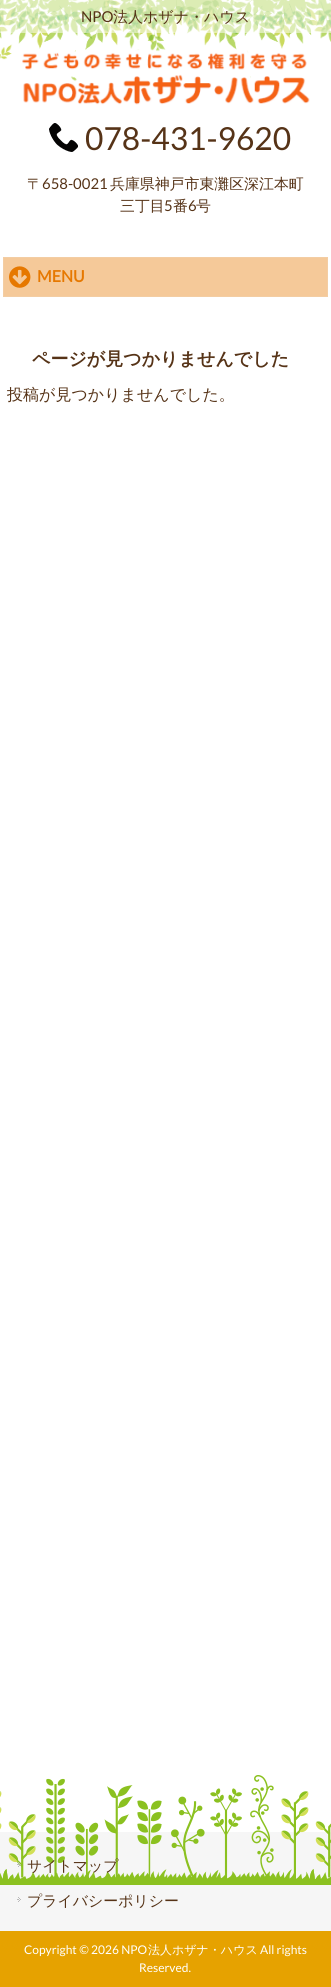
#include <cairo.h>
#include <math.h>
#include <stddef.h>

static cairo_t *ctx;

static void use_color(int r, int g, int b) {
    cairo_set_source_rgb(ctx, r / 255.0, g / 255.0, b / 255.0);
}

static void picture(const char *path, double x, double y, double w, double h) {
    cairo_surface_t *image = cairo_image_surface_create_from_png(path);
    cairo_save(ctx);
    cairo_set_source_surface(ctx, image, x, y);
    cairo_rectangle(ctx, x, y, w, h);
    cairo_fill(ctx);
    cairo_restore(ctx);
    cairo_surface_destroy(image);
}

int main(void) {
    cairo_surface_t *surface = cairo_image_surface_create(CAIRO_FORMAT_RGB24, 331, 1987);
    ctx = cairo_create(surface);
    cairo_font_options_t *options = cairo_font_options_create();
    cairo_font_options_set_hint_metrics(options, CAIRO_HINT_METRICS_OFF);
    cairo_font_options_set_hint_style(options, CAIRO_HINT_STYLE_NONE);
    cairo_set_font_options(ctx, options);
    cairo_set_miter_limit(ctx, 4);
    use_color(255, 255, 255);
    cairo_paint(ctx);
    picture("img1.png", 0, 0, 331, 82);
    cairo_set_source_rgba(ctx, 1, 1, 1, 0.5);
    cairo_rectangle(ctx, 0, 0, 331, 33);
    cairo_fill(ctx);
    cairo_select_font_face(ctx, "Lato", CAIRO_FONT_SLANT_NORMAL, CAIRO_FONT_WEIGHT_NORMAL);
    cairo_set_font_size(ctx, 15);
    use_color(86, 51, 23);
    cairo_move_to(ctx, 81, 22);
    cairo_show_text(ctx, "NPO");
    cairo_select_font_face(ctx, "WenQuanYi Zen Hei Medium", CAIRO_FONT_SLANT_NORMAL, CAIRO_FONT_WEIGHT_NORMAL);
    cairo_move_to(ctx, 113, 22);
    cairo_show_text(ctx, "法人ホザナ・ハウス");
    picture("img2.png", 22, 48, 288, 57);
    picture("img3.png", 49, 123, 29, 29);
    cairo_select_font_face(ctx, "Lato", CAIRO_FONT_SLANT_NORMAL, CAIRO_FONT_WEIGHT_NORMAL);
    cairo_set_font_size(ctx, 31.75);
    cairo_move_to(ctx, 85, 150);
    cairo_show_text(ctx, "078-431-9620");
    cairo_select_font_face(ctx, "WenQuanYi Zen Hei Medium", CAIRO_FONT_SLANT_NORMAL, CAIRO_FONT_WEIGHT_NORMAL);
    cairo_set_font_size(ctx, 14.9);
    cairo_move_to(ctx, 27, 189);
    cairo_show_text(ctx, "〒");
    cairo_select_font_face(ctx, "Lato", CAIRO_FONT_SLANT_NORMAL, CAIRO_FONT_WEIGHT_NORMAL);
    cairo_move_to(ctx, 42, 189);
    cairo_show_text(ctx, "658-0021");
    cairo_select_font_face(ctx, "WenQuanYi Zen Hei Medium", CAIRO_FONT_SLANT_NORMAL, CAIRO_FONT_WEIGHT_NORMAL);
    cairo_move_to(ctx, 110, 189);
    cairo_show_text(ctx, "兵庫県神戸市東灘区深江本町");
    cairo_move_to(ctx, 120, 211);
    cairo_show_text(ctx, "三丁目");
    cairo_select_font_face(ctx, "Lato", CAIRO_FONT_SLANT_NORMAL, CAIRO_FONT_WEIGHT_NORMAL);
    cairo_move_to(ctx, 164, 211);
    cairo_show_text(ctx, "5");
    cairo_select_font_face(ctx, "WenQuanYi Zen Hei Medium", CAIRO_FONT_SLANT_NORMAL, CAIRO_FONT_WEIGHT_NORMAL);
    cairo_move_to(ctx, 173, 211);
    cairo_show_text(ctx, "番");
    cairo_select_font_face(ctx, "Lato", CAIRO_FONT_SLANT_NORMAL, CAIRO_FONT_WEIGHT_NORMAL);
    cairo_move_to(ctx, 188, 211);
    cairo_show_text(ctx, "6");
    cairo_select_font_face(ctx, "WenQuanYi Zen Hei Medium", CAIRO_FONT_SLANT_NORMAL, CAIRO_FONT_WEIGHT_NORMAL);
    cairo_move_to(ctx, 196, 211);
    cairo_show_text(ctx, "号");
    use_color(245, 201, 153);
    cairo_rectangle(ctx, 3.5, 257.5, 324, 39);
    cairo_fill_preserve(ctx);
    use_color(243, 205, 163);
    cairo_set_line_width(ctx, 1);
    cairo_stroke(ctx);
    picture("img4.png", 9, 266, 22, 22);
    cairo_select_font_face(ctx, "Lato", CAIRO_FONT_SLANT_NORMAL, CAIRO_FONT_WEIGHT_BOLD);
    cairo_set_font_size(ctx, 16);
    use_color(230, 120, 0);
    cairo_move_to(ctx, 37, 282);
    cairo_show_text(ctx, "MENU");
    cairo_select_font_face(ctx, "WenQuanYi Zen Hei", CAIRO_FONT_SLANT_NORMAL, CAIRO_FONT_WEIGHT_BOLD);
    cairo_set_font_size(ctx, 18);
    use_color(86, 51, 23);
    cairo_move_to(ctx, 32, 365);
    cairo_show_text(ctx, "ページが見つかりませんでした");
    cairo_select_font_face(ctx, "WenQuanYi Zen Hei Medium", CAIRO_FONT_SLANT_NORMAL, CAIRO_FONT_WEIGHT_NORMAL);
    cairo_set_font_size(ctx, 16);
    cairo_move_to(ctx, 7, 400);
    cairo_show_text(ctx, "投稿が見つかりませんでした。");
    use_color(246, 246, 246);
    cairo_rectangle(ctx, 0, 1832, 331, 99);
    cairo_fill(ctx);
    picture("img5.png", 0, 1775, 331, 110);
    picture("img6.png", 17, 1862, 4, 5);
    cairo_set_font_size(ctx, 14.9);
    use_color(86, 51, 23);
    cairo_move_to(ctx, 27, 1871);
    cairo_show_text(ctx, "サイトマップ");
    picture("img7.png", 17, 1897, 4, 5);
    cairo_move_to(ctx, 27, 1906);
    cairo_show_text(ctx, "プライバシーポリシー");
    use_color(230, 162, 0);
    cairo_rectangle(ctx, 0, 1931, 331, 56);
    cairo_fill(ctx);
    cairo_select_font_face(ctx, "Lato", CAIRO_FONT_SLANT_NORMAL, CAIRO_FONT_WEIGHT_NORMAL);
    cairo_set_font_size(ctx, 12);
    use_color(255, 255, 255);
    cairo_move_to(ctx, 24, 1954);
    cairo_show_text(ctx, "Copyright © 2026 NPO");
    cairo_select_font_face(ctx, "WenQuanYi Zen Hei Medium", CAIRO_FONT_SLANT_NORMAL, CAIRO_FONT_WEIGHT_NORMAL);
    cairo_move_to(ctx, 148, 1954);
    cairo_show_text(ctx, "法人ホザナ・ハウス");
    cairo_select_font_face(ctx, "Lato", CAIRO_FONT_SLANT_NORMAL, CAIRO_FONT_WEIGHT_NORMAL);
    cairo_move_to(ctx, 260, 1954);
    cairo_show_text(ctx, "All rights");
    cairo_move_to(ctx, 139, 1972);
    cairo_show_text(ctx, "Reserved.");
    cairo_surface_write_to_png(surface, "result.png");
    cairo_font_options_destroy(options);
    cairo_destroy(ctx);
    cairo_surface_destroy(surface);
    return 0;
}
